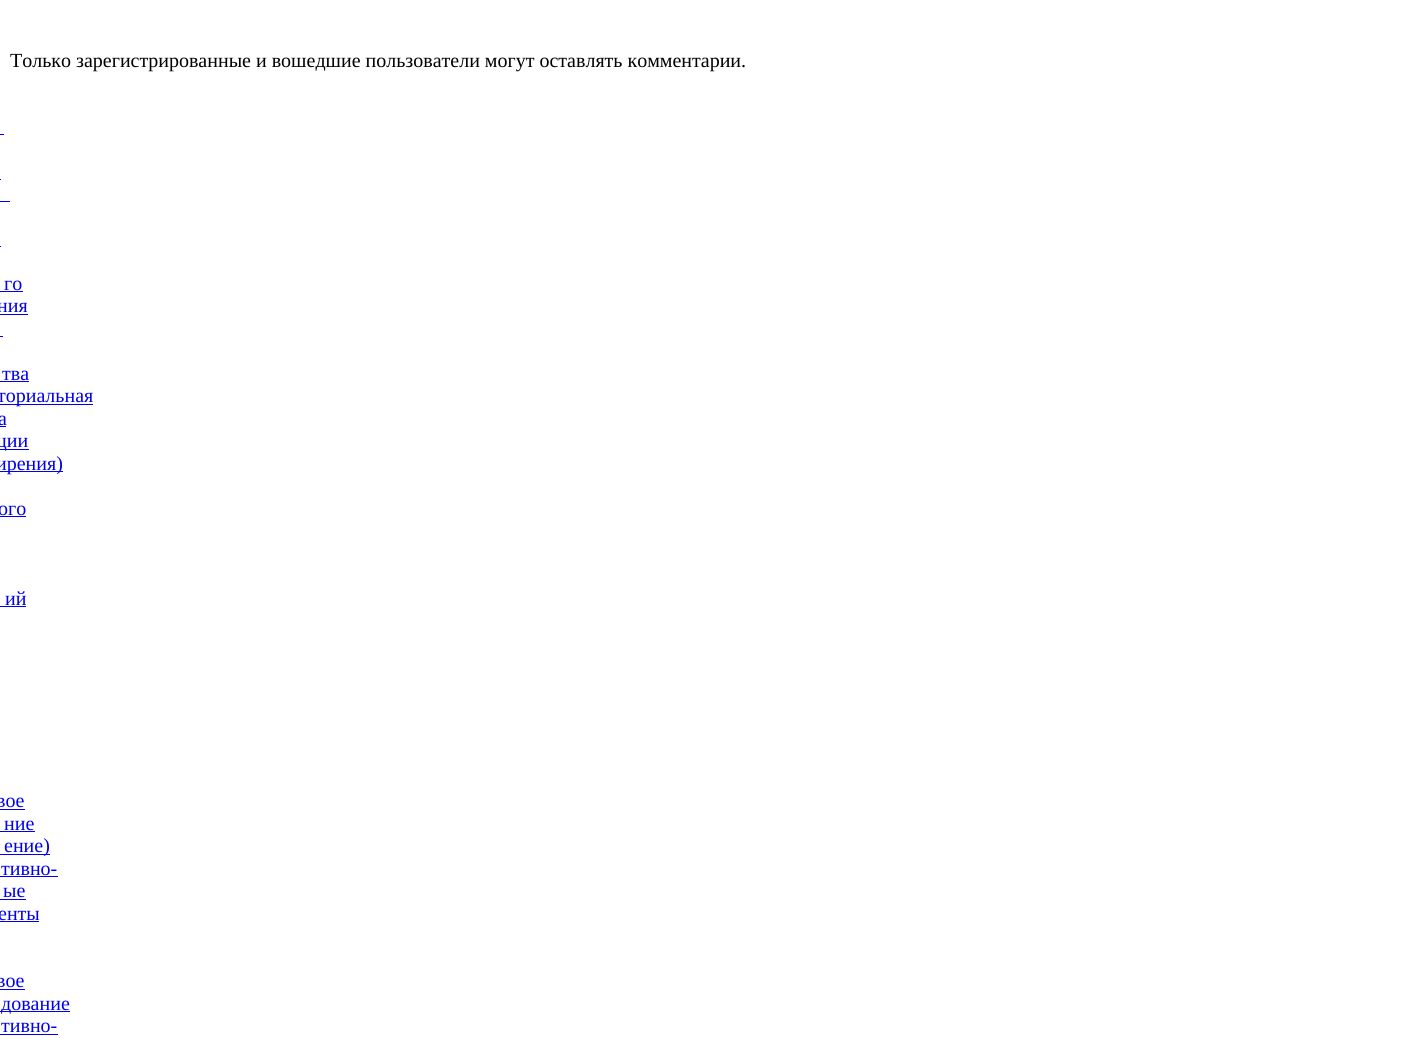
#include <cairo.h>
#include <math.h>
#include <stddef.h>

static cairo_t *ctx;

static void use_color(int r, int g, int b) {
    cairo_set_source_rgb(ctx, r / 255.0, g / 255.0, b / 255.0);
}

int main(void) {
    cairo_surface_t *surface = cairo_image_surface_create(CAIRO_FORMAT_RGB24, 1406, 1050);
    ctx = cairo_create(surface);
    cairo_font_options_t *options = cairo_font_options_create();
    cairo_font_options_set_hint_metrics(options, CAIRO_HINT_METRICS_OFF);
    cairo_font_options_set_hint_style(options, CAIRO_HINT_STYLE_NONE);
    cairo_set_font_options(ctx, options);
    cairo_set_miter_limit(ctx, 4);
    use_color(255, 255, 255);
    cairo_paint(ctx);
    cairo_select_font_face(ctx, "Liberation Serif", CAIRO_FONT_SLANT_NORMAL, CAIRO_FONT_WEIGHT_NORMAL);
    cairo_set_font_size(ctx, 20);
    use_color(0, 0, 0);
    cairo_move_to(ctx, 10, 67);
    cairo_show_text(ctx, "Только зарегистрированные и вошедшие пользователи могут оставлять комментарии.");
    use_color(0, 0, 238);
    cairo_rectangle(ctx, 0, 134, 4, 1);
    cairo_fill(ctx);
    cairo_rectangle(ctx, 0, 179, 1, 1);
    cairo_fill(ctx);
    cairo_rectangle(ctx, 0, 201, 10, 1);
    cairo_fill(ctx);
    cairo_rectangle(ctx, 0, 246, 1, 1);
    cairo_fill(ctx);
    cairo_move_to(ctx, 4, 290);
    cairo_show_text(ctx, "го");
    cairo_rectangle(ctx, 0, 291, 23, 1);
    cairo_fill(ctx);
    cairo_move_to(ctx, -3, 312);
    cairo_show_text(ctx, "ния");
    cairo_rectangle(ctx, 0, 314, 28, 1);
    cairo_fill(ctx);
    cairo_move_to(ctx, 2, 380);
    cairo_show_text(ctx, "тва");
    cairo_rectangle(ctx, 0, 336, 3, 1);
    cairo_fill(ctx);
    cairo_rectangle(ctx, 0, 381, 29, 1);
    cairo_fill(ctx);
    cairo_rectangle(ctx, 0, 404, 93, 1);
    cairo_fill(ctx);
    cairo_move_to(ctx, -3, 402);
    cairo_show_text(ctx, "ториальная");
    cairo_move_to(ctx, -2, 425);
    cairo_show_text(ctx, "а");
    cairo_rectangle(ctx, 0, 426, 6, 1);
    cairo_fill(ctx);
    cairo_rectangle(ctx, 0, 449, 29, 1);
    cairo_fill(ctx);
    cairo_move_to(ctx, -4, 447);
    cairo_show_text(ctx, "ции");
    cairo_rectangle(ctx, 0, 471, 63, 1);
    cairo_fill(ctx);
    cairo_move_to(ctx, -4, 470);
    cairo_show_text(ctx, "ирения)");
    cairo_move_to(ctx, -2, 515);
    cairo_show_text(ctx, "ого");
    cairo_rectangle(ctx, 0, 516, 26, 1);
    cairo_fill(ctx);
    cairo_move_to(ctx, 5, 605);
    cairo_show_text(ctx, "ий");
    cairo_rectangle(ctx, 0, 606, 26, 1);
    cairo_fill(ctx);
    cairo_move_to(ctx, -4, 807);
    cairo_show_text(ctx, "вое");
    cairo_rectangle(ctx, 0, 809, 25, 1);
    cairo_fill(ctx);
    cairo_move_to(ctx, 4, 830);
    cairo_show_text(ctx, "ние");
    cairo_rectangle(ctx, 0, 831, 35, 1);
    cairo_fill(ctx);
    cairo_rectangle(ctx, 0, 854, 50, 1);
    cairo_fill(ctx);
    cairo_move_to(ctx, 4, 852);
    cairo_show_text(ctx, "ение)");
    cairo_move_to(ctx, 1, 875);
    cairo_show_text(ctx, "тивно-");
    cairo_rectangle(ctx, 0, 876, 58, 1);
    cairo_fill(ctx);
    cairo_move_to(ctx, 3, 897);
    cairo_show_text(ctx, "ые");
    cairo_rectangle(ctx, 0, 899, 26, 1);
    cairo_fill(ctx);
    cairo_move_to(ctx, -2, 920);
    cairo_show_text(ctx, "енты");
    cairo_rectangle(ctx, 0, 921, 39, 1);
    cairo_fill(ctx);
    cairo_move_to(ctx, -4, 987);
    cairo_show_text(ctx, "вое");
    cairo_rectangle(ctx, 0, 989, 25, 1);
    cairo_fill(ctx);
    cairo_rectangle(ctx, 0, 1011, 70, 1);
    cairo_fill(ctx);
    cairo_move_to(ctx, 1, 1010);
    cairo_show_text(ctx, "дование");
    cairo_move_to(ctx, 1, 1032);
    cairo_show_text(ctx, "тивно-");
    cairo_rectangle(ctx, 0, 1034, 58, 1);
    cairo_fill(ctx);
    cairo_surface_write_to_png(surface, "result.png");
    cairo_font_options_destroy(options);
    cairo_destroy(ctx);
    cairo_surface_destroy(surface);
    return 0;
}
